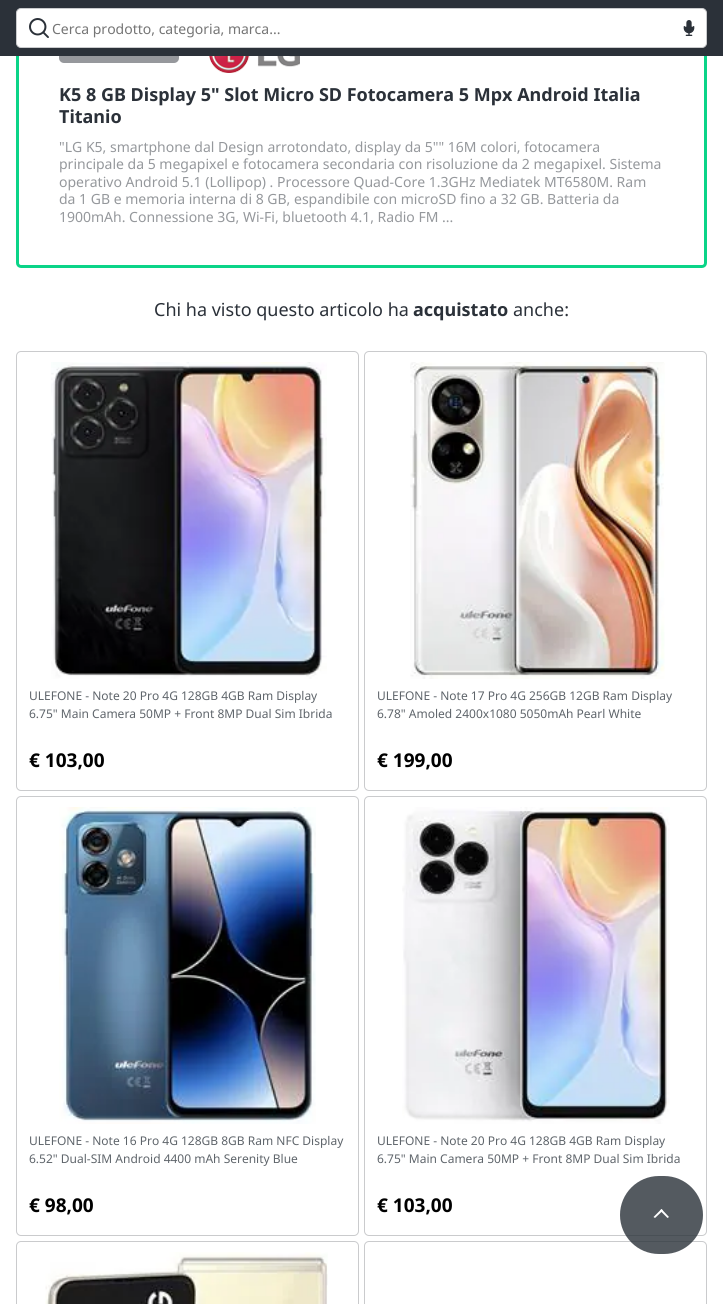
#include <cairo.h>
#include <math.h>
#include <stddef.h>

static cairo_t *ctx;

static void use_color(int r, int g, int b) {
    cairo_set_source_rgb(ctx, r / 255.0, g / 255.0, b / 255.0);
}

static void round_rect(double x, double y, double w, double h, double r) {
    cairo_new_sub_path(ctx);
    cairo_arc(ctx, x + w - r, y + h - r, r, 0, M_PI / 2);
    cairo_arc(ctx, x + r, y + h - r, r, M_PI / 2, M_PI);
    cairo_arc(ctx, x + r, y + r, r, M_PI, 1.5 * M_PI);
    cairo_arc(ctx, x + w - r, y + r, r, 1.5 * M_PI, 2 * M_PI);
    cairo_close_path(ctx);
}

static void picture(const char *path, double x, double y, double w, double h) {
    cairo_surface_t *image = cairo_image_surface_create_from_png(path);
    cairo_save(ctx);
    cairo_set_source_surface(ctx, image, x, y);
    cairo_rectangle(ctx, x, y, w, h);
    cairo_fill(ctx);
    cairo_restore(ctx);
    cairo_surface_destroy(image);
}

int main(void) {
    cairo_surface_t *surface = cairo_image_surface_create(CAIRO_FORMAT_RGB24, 723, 1304);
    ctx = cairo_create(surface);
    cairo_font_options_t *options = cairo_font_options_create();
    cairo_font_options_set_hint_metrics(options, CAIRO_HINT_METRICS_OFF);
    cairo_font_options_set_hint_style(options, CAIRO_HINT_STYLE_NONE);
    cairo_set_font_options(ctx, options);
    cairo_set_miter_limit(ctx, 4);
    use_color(255, 255, 255);
    cairo_paint(ctx);
    round_rect(17.5, -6.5, 688, 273, 3.5);
    use_color(10, 212, 136);
    cairo_set_line_width(ctx, 3);
    cairo_stroke(ctx);
    use_color(150, 152, 156);
    round_rect(59, 42, 120, 21, 5);
    cairo_fill(ctx);
    use_color(43, 49, 57);
    cairo_rectangle(ctx, 0, 0, 723, 56);
    cairo_fill(ctx);
    use_color(255, 255, 255);
    round_rect(16.5, 8.5, 690, 39, 4.5);
    cairo_fill_preserve(ctx);
    use_color(202, 203, 205);
    cairo_set_line_width(ctx, 1);
    cairo_stroke(ctx);
    picture("img1.png", 29, 18, 20, 20);
    cairo_select_font_face(ctx, "Noto Sans", CAIRO_FONT_SLANT_NORMAL, CAIRO_FONT_WEIGHT_NORMAL);
    cairo_set_font_size(ctx, 14);
    use_color(117, 117, 117);
    cairo_move_to(ctx, 52, 34);
    cairo_show_text(ctx, "Cerca prodotto, categoria, marca...");
    picture("img2.png", 683, 20, 12, 16);
    picture("img3.png", 209, 56, 91, 17);
    cairo_select_font_face(ctx, "Noto Sans", CAIRO_FONT_SLANT_NORMAL, CAIRO_FONT_WEIGHT_BOLD);
    cairo_set_font_size(ctx, 18);
    use_color(43, 49, 57);
    cairo_move_to(ctx, 59, 101);
    cairo_show_text(ctx, "K5 8 GB Display 5\" Slot Micro SD Fotocamera 5 Mpx Android Italia");
    cairo_move_to(ctx, 59, 123);
    cairo_show_text(ctx, "Titanio");
    cairo_select_font_face(ctx, "Noto Sans", CAIRO_FONT_SLANT_NORMAL, CAIRO_FONT_WEIGHT_NORMAL);
    cairo_set_font_size(ctx, 14);
    use_color(149, 152, 156);
    cairo_move_to(ctx, 59, 152);
    cairo_show_text(ctx, "\"LG K5, smartphone dal Design arrotondato, display da 5\"\" 16M colori, fotocamera");
    cairo_move_to(ctx, 59, 169);
    cairo_show_text(ctx, "principale da 5 megapixel e fotocamera secondaria con risoluzione da 2 megapixel. Sistema");
    cairo_move_to(ctx, 59, 187);
    cairo_show_text(ctx, "operativo Android 5.1 (Lollipop) . Processore Quad-Core 1.3GHz Mediatek MT6580M. Ram");
    cairo_move_to(ctx, 59, 204);
    cairo_show_text(ctx, "da 1 GB e memoria interna di 8 GB, espandibile con microSD fino a 32 GB. Batteria da");
    cairo_move_to(ctx, 59, 222);
    cairo_show_text(ctx, "1900mAh. Connessione 3G, Wi-Fi, bluetooth 4.1, Radio FM ...");
    cairo_set_font_size(ctx, 18);
    use_color(43, 49, 57);
    cairo_move_to(ctx, 154, 316);
    cairo_show_text(ctx, "Chi ha visto questo articolo ha");
    cairo_select_font_face(ctx, "Noto Sans", CAIRO_FONT_SLANT_NORMAL, CAIRO_FONT_WEIGHT_BOLD);
    cairo_move_to(ctx, 413, 316);
    cairo_show_text(ctx, "acquistato");
    cairo_select_font_face(ctx, "Noto Sans", CAIRO_FONT_SLANT_NORMAL, CAIRO_FONT_WEIGHT_NORMAL);
    cairo_move_to(ctx, 513, 316);
    cairo_show_text(ctx, "anche:");
    round_rect(16.5, 351.5, 342, 439, 4.5);
    use_color(202, 203, 205);
    cairo_stroke(ctx);
    picture("img4.png", 51, 362, 276, 317);
    cairo_set_font_size(ctx, 12);
    use_color(95, 101, 107);
    cairo_move_to(ctx, 29, 700);
    cairo_show_text(ctx, "ULEFONE - Note 20 Pro 4G 128GB 4GB Ram Display");
    cairo_move_to(ctx, 29, 718);
    cairo_show_text(ctx, "6.75\" Main Camera 50MP + Front 8MP Dual Sim Ibrida");
    cairo_select_font_face(ctx, "Noto Sans", CAIRO_FONT_SLANT_NORMAL, CAIRO_FONT_WEIGHT_BOLD);
    cairo_set_font_size(ctx, 19);
    use_color(0, 0, 0);
    cairo_move_to(ctx, 29, 767);
    cairo_show_text(ctx, "€ 103,00");
    round_rect(364.5, 351.5, 342, 439, 4.5);
    use_color(202, 203, 205);
    cairo_stroke(ctx);
    picture("img5.png", 410, 362, 255, 317);
    cairo_select_font_face(ctx, "Noto Sans", CAIRO_FONT_SLANT_NORMAL, CAIRO_FONT_WEIGHT_NORMAL);
    cairo_set_font_size(ctx, 12);
    use_color(95, 101, 107);
    cairo_move_to(ctx, 377, 700);
    cairo_show_text(ctx, "ULEFONE - Note 17 Pro 4G 256GB 12GB Ram Display");
    cairo_move_to(ctx, 377, 718);
    cairo_show_text(ctx, "6.78\" Amoled 2400x1080 5050mAh Pearl White");
    cairo_select_font_face(ctx, "Noto Sans", CAIRO_FONT_SLANT_NORMAL, CAIRO_FONT_WEIGHT_BOLD);
    cairo_set_font_size(ctx, 19);
    use_color(0, 0, 0);
    cairo_move_to(ctx, 377, 767);
    cairo_show_text(ctx, "€ 199,00");
    round_rect(16.5, 796.5, 342, 439, 4.5);
    use_color(202, 203, 205);
    cairo_stroke(ctx);
    picture("img6.png", 59, 807, 257, 317);
    cairo_select_font_face(ctx, "Noto Sans", CAIRO_FONT_SLANT_NORMAL, CAIRO_FONT_WEIGHT_NORMAL);
    cairo_set_font_size(ctx, 12);
    use_color(95, 101, 107);
    cairo_move_to(ctx, 29, 1145);
    cairo_show_text(ctx, "ULEFONE - Note 16 Pro 4G 128GB 8GB Ram NFC Display");
    cairo_move_to(ctx, 29, 1163);
    cairo_show_text(ctx, "6.52\" Dual-SIM Android 4400 mAh Serenity Blue");
    cairo_select_font_face(ctx, "Noto Sans", CAIRO_FONT_SLANT_NORMAL, CAIRO_FONT_WEIGHT_BOLD);
    cairo_set_font_size(ctx, 19);
    use_color(0, 0, 0);
    cairo_move_to(ctx, 29, 1212);
    cairo_show_text(ctx, "€ 98,00");
    round_rect(364.5, 796.5, 342, 439, 4.5);
    use_color(202, 203, 205);
    cairo_stroke(ctx);
    picture("img7.png", 402, 807, 268, 317);
    cairo_select_font_face(ctx, "Noto Sans", CAIRO_FONT_SLANT_NORMAL, CAIRO_FONT_WEIGHT_NORMAL);
    cairo_set_font_size(ctx, 12);
    use_color(95, 101, 107);
    cairo_move_to(ctx, 377, 1145);
    cairo_show_text(ctx, "ULEFONE - Note 20 Pro 4G 128GB 4GB Ram Display");
    cairo_move_to(ctx, 377, 1163);
    cairo_show_text(ctx, "6.75\" Main Camera 50MP + Front 8MP Dual Sim Ibrida");
    cairo_select_font_face(ctx, "Noto Sans", CAIRO_FONT_SLANT_NORMAL, CAIRO_FONT_WEIGHT_BOLD);
    cairo_set_font_size(ctx, 19);
    use_color(0, 0, 0);
    cairo_move_to(ctx, 377, 1212);
    cairo_show_text(ctx, "€ 103,00");
    round_rect(16.5, 1241.5, 342, 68, 4.5);
    use_color(202, 203, 205);
    cairo_stroke(ctx);
    picture("img8.png", 45, 1252, 283, 52);
    round_rect(364.5, 1241.5, 342, 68, 4.5);
    cairo_stroke(ctx);
    cairo_set_source_rgba(ctx, 0.165, 0.192, 0.224, 0.8);
    round_rect(620, 1176, 83, 78, 39);
    cairo_fill(ctx);
    use_color(255, 255, 255);
    cairo_new_path(ctx);
    cairo_move_to(ctx, 653.5, 1217);
    cairo_line_to(ctx, 661.5, 1209);
    cairo_line_to(ctx, 663, 1210.5);
    cairo_line_to(ctx, 655, 1218);
    cairo_close_path(ctx);
    cairo_fill(ctx);
    cairo_new_path(ctx);
    cairo_move_to(ctx, 660, 1210.5);
    cairo_line_to(ctx, 661.5, 1209);
    cairo_line_to(ctx, 669, 1217);
    cairo_line_to(ctx, 667.5, 1218);
    cairo_close_path(ctx);
    cairo_fill(ctx);
    cairo_surface_write_to_png(surface, "result.png");
    cairo_font_options_destroy(options);
    cairo_destroy(ctx);
    cairo_surface_destroy(surface);
    return 0;
}
